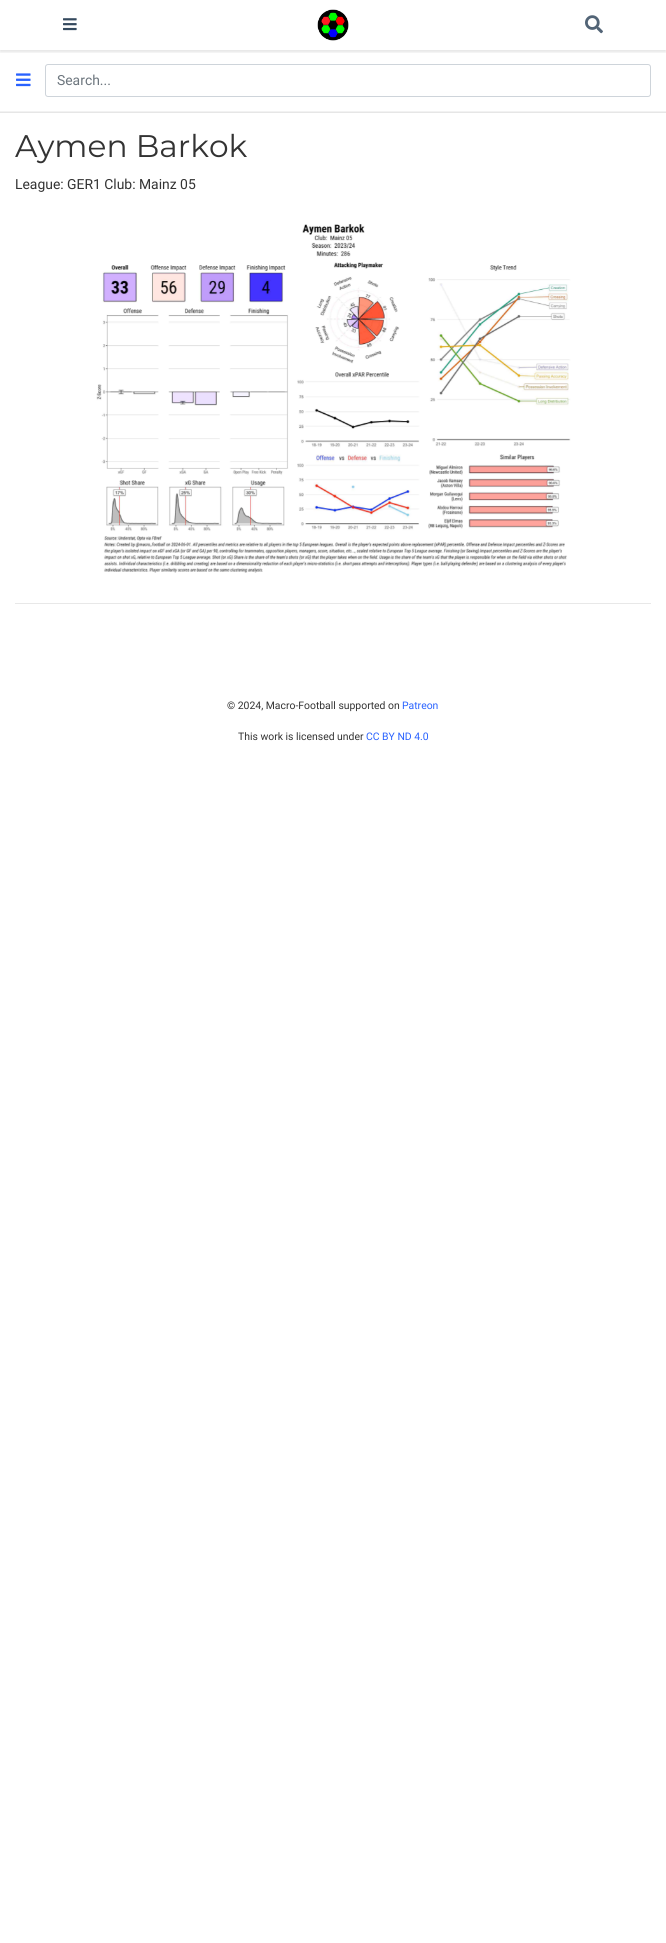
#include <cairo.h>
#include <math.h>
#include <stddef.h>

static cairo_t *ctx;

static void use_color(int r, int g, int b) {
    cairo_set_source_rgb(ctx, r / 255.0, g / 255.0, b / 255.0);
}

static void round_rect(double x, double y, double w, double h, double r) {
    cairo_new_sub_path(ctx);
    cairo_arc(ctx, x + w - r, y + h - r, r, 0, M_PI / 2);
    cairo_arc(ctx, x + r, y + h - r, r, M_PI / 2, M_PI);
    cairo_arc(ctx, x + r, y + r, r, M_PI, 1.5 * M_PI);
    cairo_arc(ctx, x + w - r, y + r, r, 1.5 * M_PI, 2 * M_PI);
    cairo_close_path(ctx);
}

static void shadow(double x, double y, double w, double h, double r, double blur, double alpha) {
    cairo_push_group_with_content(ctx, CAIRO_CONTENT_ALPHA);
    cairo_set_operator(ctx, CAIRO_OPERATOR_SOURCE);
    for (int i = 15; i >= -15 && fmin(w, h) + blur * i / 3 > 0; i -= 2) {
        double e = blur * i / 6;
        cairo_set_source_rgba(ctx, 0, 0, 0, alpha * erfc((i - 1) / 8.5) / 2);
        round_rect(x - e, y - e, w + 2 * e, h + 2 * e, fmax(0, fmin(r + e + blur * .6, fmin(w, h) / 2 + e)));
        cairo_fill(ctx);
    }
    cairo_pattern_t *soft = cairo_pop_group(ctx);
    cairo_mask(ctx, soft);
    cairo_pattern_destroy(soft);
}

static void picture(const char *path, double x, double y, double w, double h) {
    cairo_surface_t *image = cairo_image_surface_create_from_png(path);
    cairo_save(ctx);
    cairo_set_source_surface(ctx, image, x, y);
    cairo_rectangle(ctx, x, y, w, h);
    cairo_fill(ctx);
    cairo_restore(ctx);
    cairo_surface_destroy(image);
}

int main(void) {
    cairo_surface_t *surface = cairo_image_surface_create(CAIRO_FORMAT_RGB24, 666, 1943);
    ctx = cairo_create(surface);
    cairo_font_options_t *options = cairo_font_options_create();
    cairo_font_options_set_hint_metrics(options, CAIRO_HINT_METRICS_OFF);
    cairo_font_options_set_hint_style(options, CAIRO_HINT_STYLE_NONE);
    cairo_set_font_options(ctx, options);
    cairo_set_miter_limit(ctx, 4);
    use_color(255, 255, 255);
    cairo_paint(ctx);
    cairo_save(ctx);
    cairo_rectangle(ctx, 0, 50, 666, 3);
    cairo_clip(ctx);
    use_color(0, 0, 0);
    shadow(0, 2, 666, 50, 0, 1.5, 0.11);
    cairo_restore(ctx);
    picture("img1.png", 63, 18, 14, 13);
    picture("img2.png", 317, 9, 32, 32);
    picture("img3.png", 585, 15, 18, 19);
    use_color(230, 230, 230);
    cairo_rectangle(ctx, 0, 112, 666, 1);
    cairo_fill(ctx);
    use_color(242, 242, 242);
    cairo_rectangle(ctx, 0, 111, 666, 1);
    cairo_fill(ctx);
    picture("img4.png", 16, 73, 15, 14);
    round_rect(45.5, 64.5, 605, 32, 2.5);
    use_color(206, 212, 218);
    cairo_set_line_width(ctx, 1);
    cairo_stroke(ctx);
    cairo_select_font_face(ctx, "Roboto", CAIRO_FONT_SLANT_NORMAL, CAIRO_FONT_WEIGHT_NORMAL);
    cairo_set_font_size(ctx, 13.9);
    use_color(108, 117, 125);
    cairo_move_to(ctx, 57, 85);
    cairo_show_text(ctx, "Search...");
    cairo_select_font_face(ctx, "Montserrat", CAIRO_FONT_SLANT_NORMAL, CAIRO_FONT_WEIGHT_NORMAL);
    cairo_set_font_size(ctx, 31.25);
    use_color(51, 51, 51);
    cairo_move_to(ctx, 15, 157);
    cairo_show_text(ctx, "Aymen Barkok");
    cairo_select_font_face(ctx, "Roboto", CAIRO_FONT_SLANT_NORMAL, CAIRO_FONT_WEIGHT_NORMAL);
    cairo_set_font_size(ctx, 13.9);
    cairo_move_to(ctx, 15, 189);
    cairo_show_text(ctx, "League: GER1 Club: Mainz 05");
    picture("img5.png", 96, 224, 475, 349);
    use_color(232, 232, 232);
    cairo_rectangle(ctx, 15, 603, 636, 1);
    cairo_fill(ctx);
    cairo_set_font_size(ctx, 10.4);
    use_color(51, 51, 51);
    cairo_move_to(ctx, 227, 709);
    cairo_show_text(ctx, "© 2024, Macro-Football supported on");
    use_color(41, 98, 255);
    cairo_move_to(ctx, 402, 709);
    cairo_show_text(ctx, "Patreon");
    use_color(51, 51, 51);
    cairo_move_to(ctx, 238, 740);
    cairo_show_text(ctx, "This work is licensed under");
    use_color(41, 98, 255);
    cairo_move_to(ctx, 366, 740);
    cairo_show_text(ctx, "CC BY ND 4.0");
    cairo_surface_write_to_png(surface, "result.png");
    cairo_font_options_destroy(options);
    cairo_destroy(ctx);
    cairo_surface_destroy(surface);
    return 0;
}
